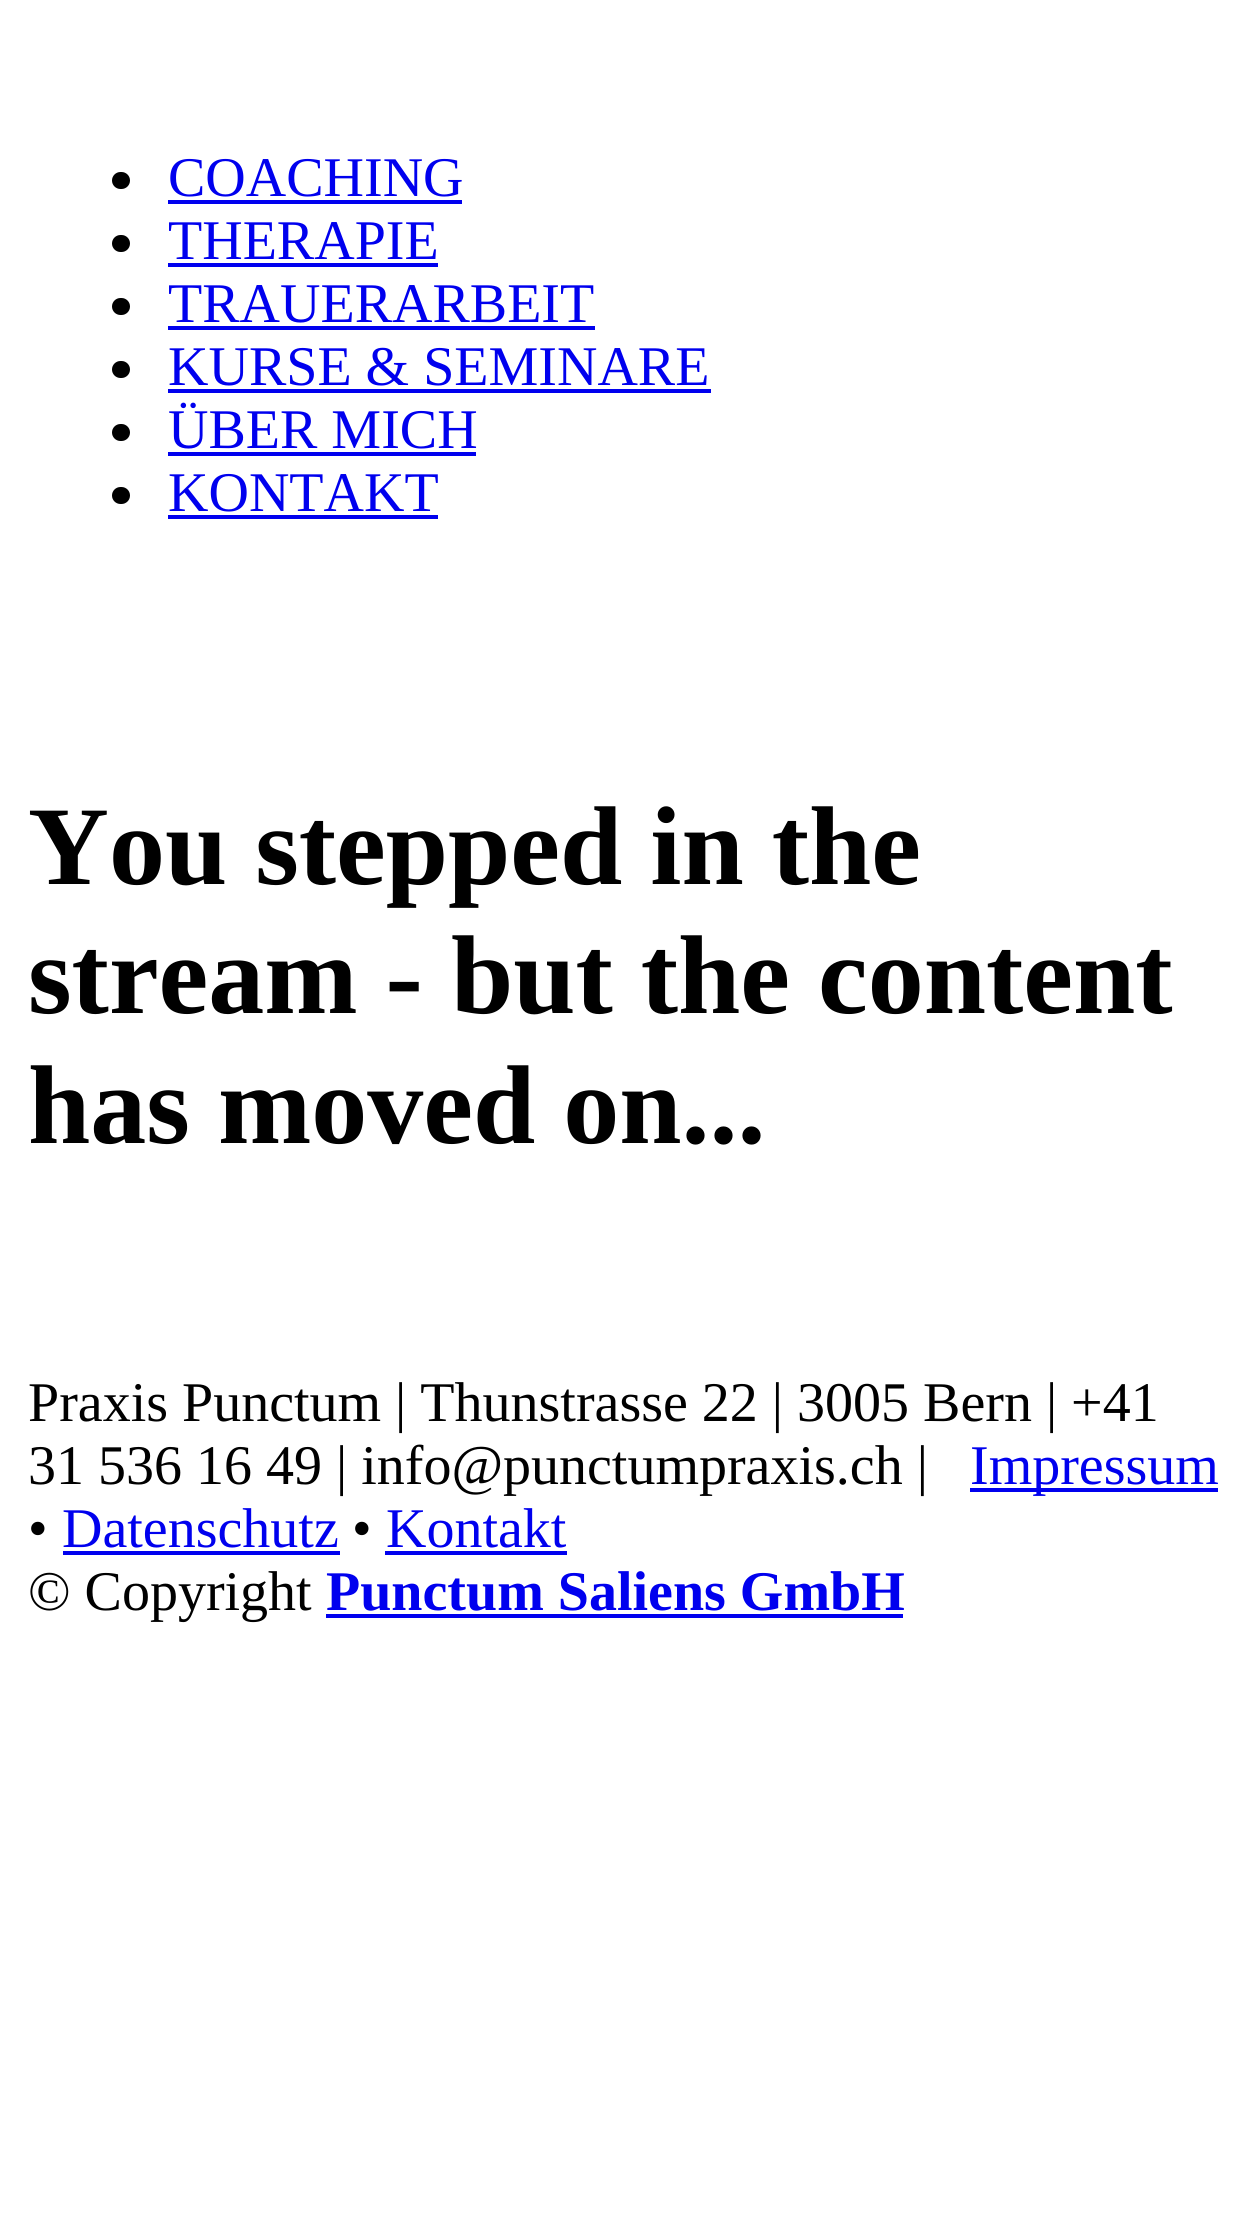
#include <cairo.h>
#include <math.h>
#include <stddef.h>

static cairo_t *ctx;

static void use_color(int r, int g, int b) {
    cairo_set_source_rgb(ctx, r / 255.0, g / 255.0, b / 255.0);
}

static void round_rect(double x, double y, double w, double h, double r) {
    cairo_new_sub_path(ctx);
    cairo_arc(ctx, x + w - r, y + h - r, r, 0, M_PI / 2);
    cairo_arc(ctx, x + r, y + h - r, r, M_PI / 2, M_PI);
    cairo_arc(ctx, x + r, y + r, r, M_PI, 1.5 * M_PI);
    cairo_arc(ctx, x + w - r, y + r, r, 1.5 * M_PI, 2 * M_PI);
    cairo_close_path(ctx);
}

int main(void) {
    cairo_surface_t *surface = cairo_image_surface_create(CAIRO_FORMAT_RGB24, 1252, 2216);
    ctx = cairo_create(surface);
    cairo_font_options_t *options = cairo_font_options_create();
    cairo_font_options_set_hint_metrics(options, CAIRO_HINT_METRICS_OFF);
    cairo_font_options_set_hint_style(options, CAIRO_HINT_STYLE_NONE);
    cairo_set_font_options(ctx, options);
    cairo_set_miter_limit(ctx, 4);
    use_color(255, 255, 255);
    cairo_paint(ctx);
    use_color(0, 0, 0);
    round_rect(112, 172, 18, 17, 8.5);
    cairo_fill(ctx);
    cairo_select_font_face(ctx, "Liberation Serif", CAIRO_FONT_SLANT_NORMAL, CAIRO_FONT_WEIGHT_NORMAL);
    cairo_set_font_size(ctx, 56);
    use_color(0, 0, 238);
    cairo_move_to(ctx, 168, 196);
    cairo_show_text(ctx, "COACHING");
    cairo_rectangle(ctx, 168, 200, 294, 4);
    cairo_fill(ctx);
    use_color(0, 0, 0);
    round_rect(112, 235, 18, 17, 8.5);
    cairo_fill(ctx);
    use_color(0, 0, 238);
    cairo_move_to(ctx, 168, 259);
    cairo_show_text(ctx, "THERAPIE");
    cairo_rectangle(ctx, 168, 263, 270, 4);
    cairo_fill(ctx);
    use_color(0, 0, 0);
    round_rect(112, 298, 18, 17, 8.5);
    cairo_fill(ctx);
    use_color(0, 0, 238);
    cairo_move_to(ctx, 168, 322);
    cairo_show_text(ctx, "TRAUERARBEIT");
    cairo_rectangle(ctx, 168, 326, 427, 4);
    cairo_fill(ctx);
    use_color(0, 0, 0);
    round_rect(112, 361, 18, 17, 8.5);
    cairo_fill(ctx);
    use_color(0, 0, 238);
    cairo_move_to(ctx, 168, 385);
    cairo_show_text(ctx, "KURSE & SEMINARE");
    cairo_rectangle(ctx, 168, 389, 543, 4);
    cairo_fill(ctx);
    use_color(0, 0, 0);
    round_rect(112, 424, 18, 17, 8.5);
    cairo_fill(ctx);
    use_color(0, 0, 238);
    cairo_move_to(ctx, 168, 448);
    cairo_show_text(ctx, "ÜBER MICH");
    cairo_rectangle(ctx, 168, 452, 308, 4);
    cairo_fill(ctx);
    use_color(0, 0, 0);
    round_rect(112, 487, 18, 17, 8.5);
    cairo_fill(ctx);
    use_color(0, 0, 238);
    cairo_move_to(ctx, 168, 511);
    cairo_show_text(ctx, "KONTAKT");
    cairo_rectangle(ctx, 168, 515, 270, 4);
    cairo_fill(ctx);
    cairo_select_font_face(ctx, "Liberation Serif", CAIRO_FONT_SLANT_NORMAL, CAIRO_FONT_WEIGHT_BOLD);
    cairo_set_font_size(ctx, 112);
    use_color(0, 0, 0);
    cairo_move_to(ctx, 28, 884);
    cairo_show_text(ctx, "You stepped in the");
    cairo_move_to(ctx, 28, 1013);
    cairo_show_text(ctx, "stream - but the content");
    cairo_move_to(ctx, 28, 1143);
    cairo_show_text(ctx, "has moved on...");
    cairo_select_font_face(ctx, "Liberation Serif", CAIRO_FONT_SLANT_NORMAL, CAIRO_FONT_WEIGHT_NORMAL);
    cairo_set_font_size(ctx, 56);
    cairo_move_to(ctx, 28, 1421);
    cairo_show_text(ctx, "Praxis Punctum | Thunstrasse 22 | 3005 Bern | +41");
    cairo_move_to(ctx, 28, 1484);
    cairo_show_text(ctx, "31 536 16 49 | info@punctumpraxis.ch |");
    use_color(0, 0, 238);
    cairo_rectangle(ctx, 970, 1488, 248, 4);
    cairo_fill(ctx);
    cairo_move_to(ctx, 970, 1484);
    cairo_show_text(ctx, "Impressum");
    use_color(0, 0, 0);
    cairo_move_to(ctx, 28, 1547);
    cairo_show_text(ctx, "•");
    use_color(0, 0, 238);
    cairo_move_to(ctx, 62, 1547);
    cairo_show_text(ctx, "Datenschutz");
    cairo_rectangle(ctx, 63, 1551, 277, 4);
    cairo_fill(ctx);
    use_color(0, 0, 0);
    cairo_move_to(ctx, 352, 1547);
    cairo_show_text(ctx, "•");
    use_color(0, 0, 238);
    cairo_move_to(ctx, 386, 1547);
    cairo_show_text(ctx, "Kontakt");
    cairo_rectangle(ctx, 385, 1551, 182, 4);
    cairo_fill(ctx);
    use_color(0, 0, 0);
    cairo_move_to(ctx, 28, 1610);
    cairo_show_text(ctx, "© Copyright");
    cairo_select_font_face(ctx, "Liberation Serif", CAIRO_FONT_SLANT_NORMAL, CAIRO_FONT_WEIGHT_BOLD);
    use_color(0, 0, 238);
    cairo_move_to(ctx, 326, 1610);
    cairo_show_text(ctx, "Punctum Saliens GmbH");
    cairo_rectangle(ctx, 326, 1614, 577, 4);
    cairo_fill(ctx);
    cairo_surface_write_to_png(surface, "result.png");
    cairo_font_options_destroy(options);
    cairo_destroy(ctx);
    cairo_surface_destroy(surface);
    return 0;
}
